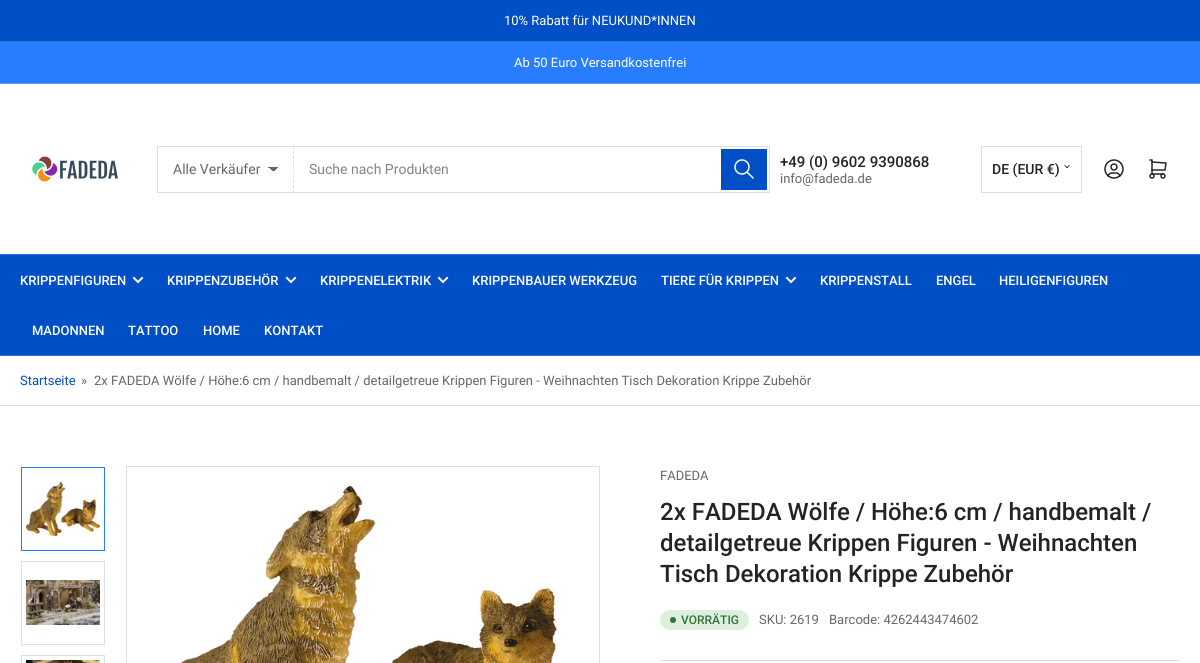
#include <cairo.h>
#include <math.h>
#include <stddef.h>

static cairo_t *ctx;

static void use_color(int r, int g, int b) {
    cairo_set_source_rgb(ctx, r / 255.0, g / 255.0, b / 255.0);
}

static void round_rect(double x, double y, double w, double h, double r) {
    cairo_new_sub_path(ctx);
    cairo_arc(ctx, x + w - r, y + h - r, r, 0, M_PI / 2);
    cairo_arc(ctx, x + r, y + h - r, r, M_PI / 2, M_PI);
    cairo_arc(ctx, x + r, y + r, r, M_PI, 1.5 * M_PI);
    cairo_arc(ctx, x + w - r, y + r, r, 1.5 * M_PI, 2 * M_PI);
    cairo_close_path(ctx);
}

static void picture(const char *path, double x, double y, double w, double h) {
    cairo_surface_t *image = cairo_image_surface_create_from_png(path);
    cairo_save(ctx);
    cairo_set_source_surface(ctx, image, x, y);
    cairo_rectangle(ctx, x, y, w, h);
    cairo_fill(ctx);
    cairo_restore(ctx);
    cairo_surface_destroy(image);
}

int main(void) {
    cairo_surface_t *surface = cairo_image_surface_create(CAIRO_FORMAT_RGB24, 1200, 663);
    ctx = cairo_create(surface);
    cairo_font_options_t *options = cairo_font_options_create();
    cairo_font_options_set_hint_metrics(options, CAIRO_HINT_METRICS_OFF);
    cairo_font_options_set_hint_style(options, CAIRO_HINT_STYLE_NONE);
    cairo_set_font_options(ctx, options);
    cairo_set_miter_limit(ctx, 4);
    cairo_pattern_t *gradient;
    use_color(255, 255, 255);
    cairo_paint(ctx);
    use_color(0, 79, 199);
    cairo_rectangle(ctx, 0, 0, 1200, 41);
    cairo_fill(ctx);
    use_color(51, 114, 210);
    cairo_rectangle(ctx, 0, 41, 1200, 1);
    cairo_fill(ctx);
    cairo_select_font_face(ctx, "Roboto", CAIRO_FONT_SLANT_NORMAL, CAIRO_FONT_WEIGHT_NORMAL);
    cairo_set_font_size(ctx, 13);
    use_color(255, 255, 255);
    cairo_move_to(ctx, 504, 25);
    cairo_show_text(ctx, "10% Rabatt für NEUKUND*INNEN");
    use_color(40, 125, 255);
    cairo_rectangle(ctx, 0, 42, 1200, 41);
    cairo_fill(ctx);
    use_color(94, 158, 255);
    cairo_rectangle(ctx, 0, 83, 1200, 1);
    cairo_fill(ctx);
    use_color(255, 255, 255);
    cairo_move_to(ctx, 514, 67);
    cairo_show_text(ctx, "Ab 50 Euro Versandkostenfrei");
    picture("img1.png", 32, 156, 86, 26);
    gradient = cairo_pattern_create_linear(273, 167, 278, 172);
    cairo_pattern_add_color_stop_rgba(gradient, 0.5, 0.404, 0.404, 0.404, 1);
    cairo_pattern_add_color_stop_rgba(gradient, 0.5, 1, 1, 1, 1);
    cairo_set_source(ctx, gradient);
    cairo_pattern_destroy(gradient);
    cairo_rectangle(ctx, 273, 167, 5, 4);
    cairo_fill(ctx);
    gradient = cairo_pattern_create_linear(268, 172, 273, 167);
    cairo_pattern_add_color_stop_rgba(gradient, 0.5, 1, 1, 1, 1);
    cairo_pattern_add_color_stop_rgba(gradient, 0.5, 0.404, 0.404, 0.404, 1);
    cairo_set_source(ctx, gradient);
    cairo_pattern_destroy(gradient);
    cairo_rectangle(ctx, 268, 167, 5, 4);
    cairo_fill(ctx);
    use_color(223, 223, 223);
    cairo_rectangle(ctx, 157, 146, 613, 1);
    cairo_fill(ctx);
    cairo_new_path(ctx);
    cairo_move_to(ctx, 293.5, 146);
    cairo_line_to(ctx, 293.5, 193);
    cairo_set_line_width(ctx, 1);
    cairo_set_dash(ctx, (double[]){3, 1.89}, 2, 0);
    cairo_stroke(ctx);
    cairo_rectangle(ctx, 157, 192, 137, 1);
    cairo_fill(ctx);
    cairo_rectangle(ctx, 157, 146, 1, 47);
    cairo_fill(ctx);
    cairo_set_font_size(ctx, 14);
    use_color(103, 103, 103);
    cairo_move_to(ctx, 173, 174);
    cairo_show_text(ctx, "Alle Verkäufer");
    use_color(223, 223, 223);
    cairo_rectangle(ctx, 769, 146, 1, 47);
    cairo_fill(ctx);
    cairo_rectangle(ctx, 294, 192, 476, 1);
    cairo_fill(ctx);
    use_color(133, 133, 133);
    cairo_move_to(ctx, 309, 174);
    cairo_show_text(ctx, "Suche nach Produkten");
    cairo_rectangle(ctx, 721.5, 149.5, 45, 40);
    use_color(0, 79, 199);
    cairo_set_dash(ctx, NULL, 0, 0);
    cairo_stroke(ctx);
    cairo_rectangle(ctx, 722, 150, 44, 39);
    cairo_fill(ctx);
    picture("img2.png", 734, 159, 20, 20);
    cairo_select_font_face(ctx, "Roboto Medium", CAIRO_FONT_SLANT_NORMAL, CAIRO_FONT_WEIGHT_NORMAL);
    cairo_set_font_size(ctx, 15);
    use_color(35, 35, 35);
    cairo_move_to(ctx, 780, 167);
    cairo_show_text(ctx, "+49 (0) 9602 9390868");
    cairo_select_font_face(ctx, "Roboto", CAIRO_FONT_SLANT_NORMAL, CAIRO_FONT_WEIGHT_NORMAL);
    cairo_set_font_size(ctx, 13);
    use_color(103, 103, 103);
    cairo_move_to(ctx, 780, 183);
    cairo_show_text(ctx, "info@fadeda.de");
    cairo_rectangle(ctx, 981.5, 146.5, 100, 46);
    use_color(223, 223, 223);
    cairo_stroke(ctx);
    cairo_select_font_face(ctx, "Roboto Medium", CAIRO_FONT_SLANT_NORMAL, CAIRO_FONT_WEIGHT_NORMAL);
    cairo_set_font_size(ctx, 14);
    use_color(35, 35, 35);
    cairo_move_to(ctx, 992, 174);
    cairo_show_text(ctx, "DE (EUR €)");
    cairo_new_path(ctx);
    cairo_move_to(ctx, 1065, 165);
    cairo_line_to(ctx, 1066.5, 166.5);
    cairo_curve_to(ctx, 1067, 167, 1068, 168.5, 1066.5, 168);
    cairo_line_to(ctx, 1064.5, 165.5);
    cairo_curve_to(ctx, 1064, 165, 1064.5, 164.5, 1065, 165);
    cairo_close_path(ctx);
    cairo_fill(ctx);
    cairo_new_path(ctx);
    cairo_move_to(ctx, 1067, 167);
    cairo_line_to(ctx, 1068.5, 165.5);
    cairo_curve_to(ctx, 1069, 165, 1070.5, 164.5, 1069.5, 165.5);
    cairo_line_to(ctx, 1067.5, 168);
    cairo_curve_to(ctx, 1067, 168, 1066.5, 167.5, 1067, 167);
    cairo_close_path(ctx);
    cairo_fill(ctx);
    picture("img3.png", 1104, 159, 20, 20);
    picture("img4.png", 1149, 159, 18, 20);
    use_color(0, 79, 199);
    cairo_rectangle(ctx, 0, 255, 1200, 100);
    cairo_fill(ctx);
    use_color(51, 114, 210);
    cairo_rectangle(ctx, 0, 254, 1200, 1);
    cairo_fill(ctx);
    cairo_rectangle(ctx, 0, 355, 1200, 1);
    cairo_fill(ctx);
    cairo_set_font_size(ctx, 13);
    use_color(255, 255, 255);
    cairo_move_to(ctx, 20, 285);
    cairo_show_text(ctx, "KRIPPENFIGUREN");
    cairo_new_path(ctx);
    cairo_move_to(ctx, 142, 278);
    cairo_line_to(ctx, 138, 282);
    cairo_line_to(ctx, 134, 278);
    cairo_set_line_width(ctx, 2);
    cairo_set_line_cap(ctx, CAIRO_LINE_CAP_SQUARE);
    cairo_stroke(ctx);
    cairo_move_to(ctx, 167, 285);
    cairo_show_text(ctx, "KRIPPENZUBEHÖR");
    cairo_new_path(ctx);
    cairo_move_to(ctx, 295, 278);
    cairo_line_to(ctx, 291, 282);
    cairo_line_to(ctx, 287, 278);
    cairo_stroke(ctx);
    cairo_move_to(ctx, 320, 285);
    cairo_show_text(ctx, "KRIPPENELEKTRIK");
    cairo_new_path(ctx);
    cairo_move_to(ctx, 447, 278);
    cairo_line_to(ctx, 443, 282);
    cairo_line_to(ctx, 439, 278);
    cairo_stroke(ctx);
    cairo_move_to(ctx, 472, 285);
    cairo_show_text(ctx, "KRIPPENBAUER WERKZEUG");
    cairo_move_to(ctx, 661, 285);
    cairo_show_text(ctx, "TIERE FÜR KRIPPEN");
    cairo_new_path(ctx);
    cairo_move_to(ctx, 795, 278);
    cairo_line_to(ctx, 791, 282);
    cairo_line_to(ctx, 787, 278);
    cairo_stroke(ctx);
    cairo_move_to(ctx, 820, 285);
    cairo_show_text(ctx, "KRIPPENSTALL");
    cairo_move_to(ctx, 936, 285);
    cairo_show_text(ctx, "ENGEL");
    cairo_move_to(ctx, 999, 285);
    cairo_show_text(ctx, "HEILIGENFIGUREN");
    cairo_move_to(ctx, 32, 335);
    cairo_show_text(ctx, "MADONNEN");
    cairo_move_to(ctx, 128, 335);
    cairo_show_text(ctx, "TATTOO");
    cairo_move_to(ctx, 203, 335);
    cairo_show_text(ctx, "HOME");
    cairo_move_to(ctx, 264, 335);
    cairo_show_text(ctx, "KONTAKT");
    use_color(223, 223, 223);
    cairo_rectangle(ctx, 0, 405, 1200, 1);
    cairo_fill(ctx);
    cairo_select_font_face(ctx, "Roboto", CAIRO_FONT_SLANT_NORMAL, CAIRO_FONT_WEIGHT_NORMAL);
    use_color(0, 79, 199);
    cairo_move_to(ctx, 20, 385);
    cairo_show_text(ctx, "Startseite");
    use_color(103, 103, 103);
    cairo_move_to(ctx, 81, 385);
    cairo_show_text(ctx, "»");
    cairo_move_to(ctx, 94, 385);
    cairo_show_text(ctx, "2x FADEDA Wölfe / Höhe:6 cm / handbemalt / detailgetreue Krippen Figuren - Weihnachten Tisch Dekoration Krippe Zubehör");
    use_color(249, 249, 249);
    cairo_rectangle(ctx, 21, 551, 84, 2);
    cairo_fill(ctx);
    cairo_rectangle(ctx, 21.5, 467.5, 83, 83);
    use_color(40, 125, 255);
    cairo_set_line_width(ctx, 1);
    cairo_set_line_cap(ctx, CAIRO_LINE_CAP_BUTT);
    cairo_stroke(ctx);
    picture("img5.png", 26, 482, 74, 54);
    use_color(249, 249, 249);
    cairo_rectangle(ctx, 21, 645, 84, 2);
    cairo_fill(ctx);
    cairo_rectangle(ctx, 21.5, 561.5, 83, 83);
    use_color(223, 223, 223);
    cairo_stroke(ctx);
    picture("img6.png", 26, 580, 74, 45);
    cairo_rectangle(ctx, 21.5, 655.5, 83, 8);
    cairo_stroke(ctx);
    picture("img7.png", 26, 660, 74, 3);
    cairo_rectangle(ctx, 126.5, 466.5, 473, 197);
    cairo_stroke(ctx);
    picture("img8.png", 180, 486, 377, 177);
    cairo_rectangle(ctx, 660, 660, 520, 1);
    cairo_fill(ctx);
    use_color(103, 103, 103);
    cairo_move_to(ctx, 660, 480);
    cairo_show_text(ctx, "FADEDA");
    cairo_select_font_face(ctx, "Roboto Medium", CAIRO_FONT_SLANT_NORMAL, CAIRO_FONT_WEIGHT_NORMAL);
    cairo_set_font_size(ctx, 24);
    use_color(35, 35, 35);
    cairo_move_to(ctx, 660, 520);
    cairo_show_text(ctx, "2x FADEDA Wölfe / Höhe:6 cm / handbemalt /");
    cairo_move_to(ctx, 660, 551);
    cairo_show_text(ctx, "detailgetreue Krippen Figuren - Weihnachten");
    cairo_move_to(ctx, 660, 582);
    cairo_show_text(ctx, "Tisch Dekoration Krippe Zubehör");
    use_color(221, 240, 223);
    round_rect(660, 610, 89, 20, 10);
    cairo_fill(ctx);
    use_color(51, 114, 57);
    cairo_arc(ctx, 673, 620, 3, 0, 2 * M_PI);
    cairo_fill(ctx);
    cairo_set_font_size(ctx, 12);
    cairo_move_to(ctx, 681, 624);
    cairo_show_text(ctx, "VORRÄTIG");
    cairo_select_font_face(ctx, "Roboto", CAIRO_FONT_SLANT_NORMAL, CAIRO_FONT_WEIGHT_NORMAL);
    cairo_set_font_size(ctx, 13);
    use_color(103, 103, 103);
    cairo_move_to(ctx, 759, 624);
    cairo_show_text(ctx, "SKU: 2619");
    cairo_move_to(ctx, 829, 624);
    cairo_show_text(ctx, "Barcode: 4262443474602");
    cairo_surface_write_to_png(surface, "result.png");
    cairo_font_options_destroy(options);
    cairo_destroy(ctx);
    cairo_surface_destroy(surface);
    return 0;
}
